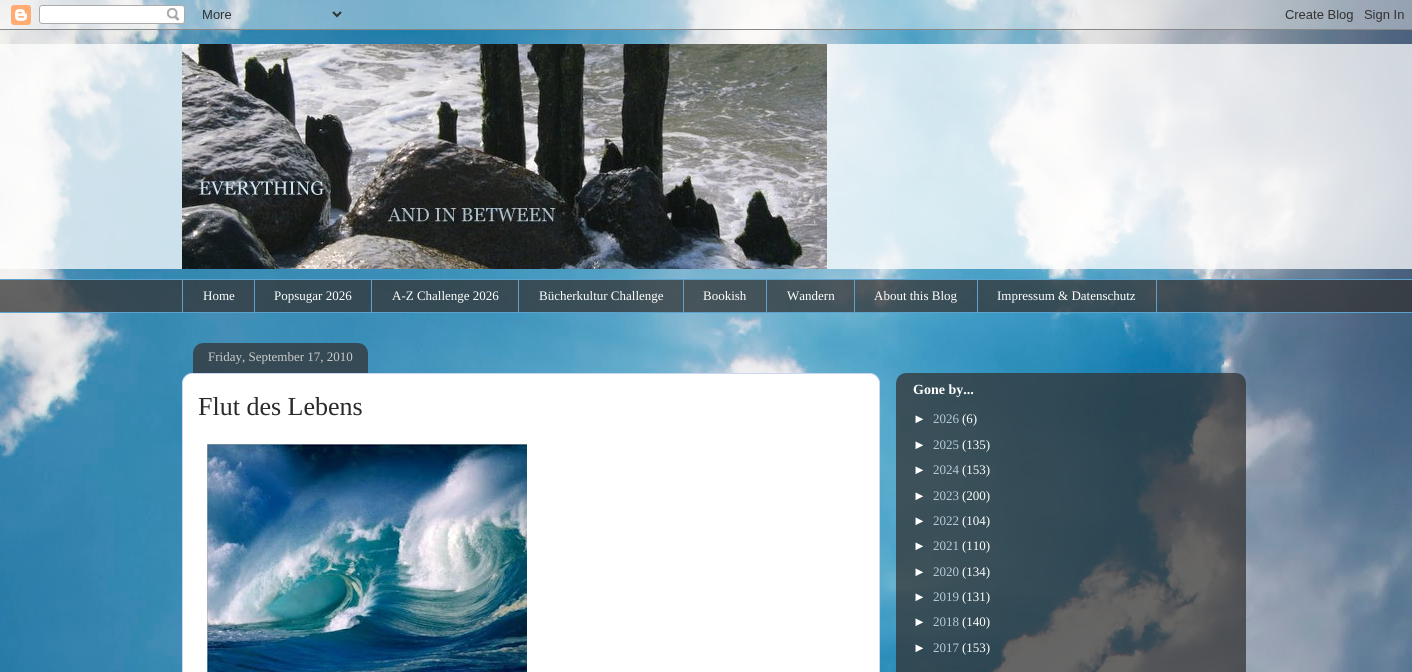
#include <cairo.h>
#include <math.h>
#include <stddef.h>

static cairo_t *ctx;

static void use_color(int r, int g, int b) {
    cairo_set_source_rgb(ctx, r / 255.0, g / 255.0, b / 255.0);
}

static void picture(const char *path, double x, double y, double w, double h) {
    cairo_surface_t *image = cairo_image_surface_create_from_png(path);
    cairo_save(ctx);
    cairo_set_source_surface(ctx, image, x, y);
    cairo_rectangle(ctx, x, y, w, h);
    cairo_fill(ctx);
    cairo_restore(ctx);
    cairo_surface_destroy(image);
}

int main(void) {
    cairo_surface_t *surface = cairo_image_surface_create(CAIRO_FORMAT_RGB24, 1412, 672);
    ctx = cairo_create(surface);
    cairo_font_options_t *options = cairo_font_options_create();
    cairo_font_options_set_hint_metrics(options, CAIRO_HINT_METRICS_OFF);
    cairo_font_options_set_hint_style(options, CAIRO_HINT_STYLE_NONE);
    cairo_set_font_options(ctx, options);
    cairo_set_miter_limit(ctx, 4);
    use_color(255, 255, 255);
    cairo_paint(ctx);
    picture("img1.png", 0, 0, 1412, 672);
    picture("img2.png", 0, 0, 1412, 30);
    cairo_set_source_rgba(ctx, 1, 1, 1, 0.75);
    cairo_rectangle(ctx, 0, 44, 1412, 225);
    cairo_fill(ctx);
    picture("img3.png", 182, 44, 645, 225);
    cairo_set_source_rgba(ctx, 0.2, 0.2, 0.2, 0.75);
    cairo_rectangle(ctx, 0, 280, 1412, 32);
    cairo_fill(ctx);
    use_color(93, 162, 205);
    cairo_rectangle(ctx, 0, 279, 1412, 1);
    cairo_fill(ctx);
    cairo_rectangle(ctx, 182, 279, 1, 34);
    cairo_fill(ctx);
    cairo_select_font_face(ctx, "Liberation Serif", CAIRO_FONT_SLANT_NORMAL, CAIRO_FONT_WEIGHT_NORMAL);
    cairo_set_font_size(ctx, 13);
    use_color(255, 255, 255);
    cairo_move_to(ctx, 203, 300);
    cairo_show_text(ctx, "Home");
    use_color(93, 162, 205);
    cairo_rectangle(ctx, 254, 279, 1, 34);
    cairo_fill(ctx);
    use_color(255, 255, 255);
    cairo_move_to(ctx, 274, 300);
    cairo_show_text(ctx, "Popsugar 2026");
    use_color(93, 162, 205);
    cairo_rectangle(ctx, 371, 279, 1, 34);
    cairo_fill(ctx);
    use_color(255, 255, 255);
    cairo_move_to(ctx, 392, 300);
    cairo_show_text(ctx, "A-Z Challenge 2026");
    use_color(93, 162, 205);
    cairo_rectangle(ctx, 518, 279, 1, 34);
    cairo_fill(ctx);
    use_color(255, 255, 255);
    cairo_move_to(ctx, 539, 300);
    cairo_show_text(ctx, "Bücherkultur Challenge");
    use_color(93, 162, 205);
    cairo_rectangle(ctx, 683, 279, 1, 34);
    cairo_fill(ctx);
    use_color(255, 255, 255);
    cairo_move_to(ctx, 703, 300);
    cairo_show_text(ctx, "Bookish");
    use_color(93, 162, 205);
    cairo_rectangle(ctx, 766, 279, 1, 34);
    cairo_fill(ctx);
    use_color(255, 255, 255);
    cairo_move_to(ctx, 787, 300);
    cairo_show_text(ctx, "Wandern");
    use_color(93, 162, 205);
    cairo_rectangle(ctx, 854, 279, 1, 34);
    cairo_fill(ctx);
    use_color(255, 255, 255);
    cairo_move_to(ctx, 874, 300);
    cairo_show_text(ctx, "About this Blog");
    cairo_rectangle(ctx, 977.5, 279.5, 179, 33);
    use_color(93, 162, 205);
    cairo_set_line_width(ctx, 1);
    cairo_stroke(ctx);
    use_color(255, 255, 255);
    cairo_move_to(ctx, 997, 300);
    cairo_show_text(ctx, "Impressum & Datenschutz");
    use_color(93, 162, 205);
    cairo_rectangle(ctx, 0, 312, 1412, 1);
    cairo_fill(ctx);
    use_color(255, 255, 255);
    cairo_new_path(ctx);
    cairo_move_to(ctx, 192, 373.5);
    cairo_line_to(ctx, 870, 373.5);
    cairo_curve_to(ctx, 875, 373.5, 879.5, 378, 879.5, 383);
    cairo_line_to(ctx, 879.5, 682.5);
    cairo_line_to(ctx, 182.5, 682.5);
    cairo_line_to(ctx, 182.5, 383);
    cairo_curve_to(ctx, 182.5, 378, 187, 373.5, 192, 373.5);
    cairo_close_path(ctx);
    cairo_fill_preserve(ctx);
    use_color(203, 214, 243);
    cairo_stroke(ctx);
    picture("img4.png", 193, 343, 175, 30);
    use_color(203, 203, 203);
    cairo_move_to(ctx, 208, 361);
    cairo_show_text(ctx, "Friday, September 17, 2010");
    cairo_set_font_size(ctx, 26);
    use_color(42, 42, 42);
    cairo_move_to(ctx, 198, 415);
    cairo_show_text(ctx, "Flut des Lebens");
    picture("img5.png", 207, 444, 320, 228);
    picture("img6.png", 896, 373, 350, 299);
    cairo_select_font_face(ctx, "Liberation Serif", CAIRO_FONT_SLANT_NORMAL, CAIRO_FONT_WEIGHT_BOLD);
    cairo_set_font_size(ctx, 14);
    use_color(255, 255, 255);
    cairo_move_to(ctx, 913, 394);
    cairo_show_text(ctx, "Gone by...");
    cairo_select_font_face(ctx, "Liberation Sans", CAIRO_FONT_SLANT_NORMAL, CAIRO_FONT_WEIGHT_NORMAL);
    cairo_set_font_size(ctx, 13);
    cairo_move_to(ctx, 913, 423);
    cairo_show_text(ctx, "►");
    cairo_select_font_face(ctx, "Liberation Serif", CAIRO_FONT_SLANT_NORMAL, CAIRO_FONT_WEIGHT_NORMAL);
    use_color(182, 203, 217);
    cairo_move_to(ctx, 933, 423);
    cairo_show_text(ctx, "2026");
    use_color(255, 255, 255);
    cairo_move_to(ctx, 962, 423);
    cairo_show_text(ctx, "(6)");
    cairo_select_font_face(ctx, "Liberation Sans", CAIRO_FONT_SLANT_NORMAL, CAIRO_FONT_WEIGHT_NORMAL);
    cairo_move_to(ctx, 913, 449);
    cairo_show_text(ctx, "►");
    cairo_select_font_face(ctx, "Liberation Serif", CAIRO_FONT_SLANT_NORMAL, CAIRO_FONT_WEIGHT_NORMAL);
    use_color(182, 203, 217);
    cairo_move_to(ctx, 933, 449);
    cairo_show_text(ctx, "2025");
    use_color(255, 255, 255);
    cairo_move_to(ctx, 962, 449);
    cairo_show_text(ctx, "(135)");
    cairo_select_font_face(ctx, "Liberation Sans", CAIRO_FONT_SLANT_NORMAL, CAIRO_FONT_WEIGHT_NORMAL);
    cairo_move_to(ctx, 913, 474);
    cairo_show_text(ctx, "►");
    cairo_select_font_face(ctx, "Liberation Serif", CAIRO_FONT_SLANT_NORMAL, CAIRO_FONT_WEIGHT_NORMAL);
    use_color(182, 203, 217);
    cairo_move_to(ctx, 933, 474);
    cairo_show_text(ctx, "2024");
    use_color(255, 255, 255);
    cairo_move_to(ctx, 962, 474);
    cairo_show_text(ctx, "(153)");
    cairo_select_font_face(ctx, "Liberation Sans", CAIRO_FONT_SLANT_NORMAL, CAIRO_FONT_WEIGHT_NORMAL);
    cairo_move_to(ctx, 913, 500);
    cairo_show_text(ctx, "►");
    cairo_select_font_face(ctx, "Liberation Serif", CAIRO_FONT_SLANT_NORMAL, CAIRO_FONT_WEIGHT_NORMAL);
    use_color(182, 203, 217);
    cairo_move_to(ctx, 933, 500);
    cairo_show_text(ctx, "2023");
    use_color(255, 255, 255);
    cairo_move_to(ctx, 962, 500);
    cairo_show_text(ctx, "(200)");
    cairo_select_font_face(ctx, "Liberation Sans", CAIRO_FONT_SLANT_NORMAL, CAIRO_FONT_WEIGHT_NORMAL);
    cairo_move_to(ctx, 913, 525);
    cairo_show_text(ctx, "►");
    cairo_select_font_face(ctx, "Liberation Serif", CAIRO_FONT_SLANT_NORMAL, CAIRO_FONT_WEIGHT_NORMAL);
    use_color(182, 203, 217);
    cairo_move_to(ctx, 933, 525);
    cairo_show_text(ctx, "2022");
    use_color(255, 255, 255);
    cairo_move_to(ctx, 962, 525);
    cairo_show_text(ctx, "(104)");
    cairo_select_font_face(ctx, "Liberation Sans", CAIRO_FONT_SLANT_NORMAL, CAIRO_FONT_WEIGHT_NORMAL);
    cairo_move_to(ctx, 913, 550);
    cairo_show_text(ctx, "►");
    cairo_select_font_face(ctx, "Liberation Serif", CAIRO_FONT_SLANT_NORMAL, CAIRO_FONT_WEIGHT_NORMAL);
    use_color(182, 203, 217);
    cairo_move_to(ctx, 933, 550);
    cairo_show_text(ctx, "2021");
    use_color(255, 255, 255);
    cairo_move_to(ctx, 962, 550);
    cairo_show_text(ctx, "(110)");
    cairo_select_font_face(ctx, "Liberation Sans", CAIRO_FONT_SLANT_NORMAL, CAIRO_FONT_WEIGHT_NORMAL);
    cairo_move_to(ctx, 913, 576);
    cairo_show_text(ctx, "►");
    cairo_select_font_face(ctx, "Liberation Serif", CAIRO_FONT_SLANT_NORMAL, CAIRO_FONT_WEIGHT_NORMAL);
    use_color(182, 203, 217);
    cairo_move_to(ctx, 933, 576);
    cairo_show_text(ctx, "2020");
    use_color(255, 255, 255);
    cairo_move_to(ctx, 962, 576);
    cairo_show_text(ctx, "(134)");
    cairo_select_font_face(ctx, "Liberation Sans", CAIRO_FONT_SLANT_NORMAL, CAIRO_FONT_WEIGHT_NORMAL);
    cairo_move_to(ctx, 913, 601);
    cairo_show_text(ctx, "►");
    cairo_select_font_face(ctx, "Liberation Serif", CAIRO_FONT_SLANT_NORMAL, CAIRO_FONT_WEIGHT_NORMAL);
    use_color(182, 203, 217);
    cairo_move_to(ctx, 933, 601);
    cairo_show_text(ctx, "2019");
    use_color(255, 255, 255);
    cairo_move_to(ctx, 962, 601);
    cairo_show_text(ctx, "(131)");
    cairo_select_font_face(ctx, "Liberation Sans", CAIRO_FONT_SLANT_NORMAL, CAIRO_FONT_WEIGHT_NORMAL);
    cairo_move_to(ctx, 913, 626);
    cairo_show_text(ctx, "►");
    cairo_select_font_face(ctx, "Liberation Serif", CAIRO_FONT_SLANT_NORMAL, CAIRO_FONT_WEIGHT_NORMAL);
    use_color(182, 203, 217);
    cairo_move_to(ctx, 933, 626);
    cairo_show_text(ctx, "2018");
    use_color(255, 255, 255);
    cairo_move_to(ctx, 962, 626);
    cairo_show_text(ctx, "(140)");
    cairo_select_font_face(ctx, "Liberation Sans", CAIRO_FONT_SLANT_NORMAL, CAIRO_FONT_WEIGHT_NORMAL);
    cairo_move_to(ctx, 913, 652);
    cairo_show_text(ctx, "►");
    cairo_select_font_face(ctx, "Liberation Serif", CAIRO_FONT_SLANT_NORMAL, CAIRO_FONT_WEIGHT_NORMAL);
    use_color(182, 203, 217);
    cairo_move_to(ctx, 933, 652);
    cairo_show_text(ctx, "2017");
    use_color(255, 255, 255);
    cairo_move_to(ctx, 962, 652);
    cairo_show_text(ctx, "(153)");
    cairo_surface_write_to_png(surface, "result.png");
    cairo_font_options_destroy(options);
    cairo_destroy(ctx);
    cairo_surface_destroy(surface);
    return 0;
}
